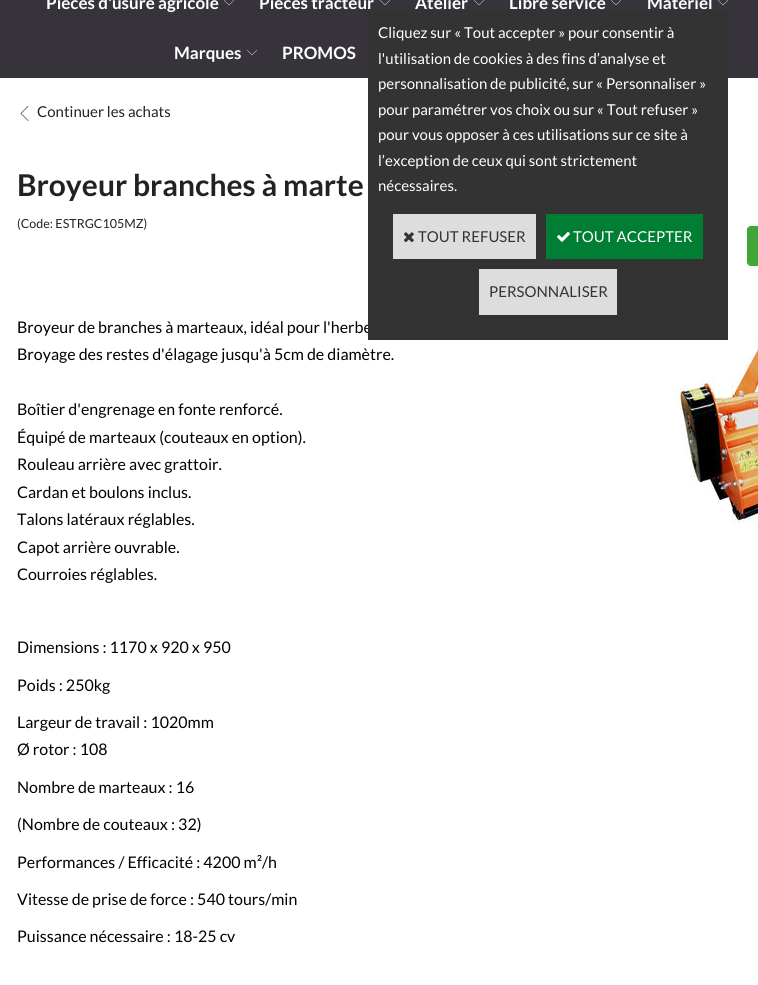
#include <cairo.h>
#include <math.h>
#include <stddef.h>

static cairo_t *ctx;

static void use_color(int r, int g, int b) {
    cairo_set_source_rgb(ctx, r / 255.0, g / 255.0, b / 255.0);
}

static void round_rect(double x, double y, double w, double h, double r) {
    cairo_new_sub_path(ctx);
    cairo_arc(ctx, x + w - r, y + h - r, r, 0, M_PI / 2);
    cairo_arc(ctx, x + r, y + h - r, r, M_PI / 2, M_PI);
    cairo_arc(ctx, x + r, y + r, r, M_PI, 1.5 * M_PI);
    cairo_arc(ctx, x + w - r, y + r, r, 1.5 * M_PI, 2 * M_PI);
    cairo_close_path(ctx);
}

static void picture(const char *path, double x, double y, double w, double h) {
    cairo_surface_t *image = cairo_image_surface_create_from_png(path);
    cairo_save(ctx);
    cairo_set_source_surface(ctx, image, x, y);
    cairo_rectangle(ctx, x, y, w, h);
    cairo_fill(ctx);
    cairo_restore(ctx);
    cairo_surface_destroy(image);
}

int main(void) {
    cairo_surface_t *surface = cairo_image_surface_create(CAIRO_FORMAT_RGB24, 758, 985);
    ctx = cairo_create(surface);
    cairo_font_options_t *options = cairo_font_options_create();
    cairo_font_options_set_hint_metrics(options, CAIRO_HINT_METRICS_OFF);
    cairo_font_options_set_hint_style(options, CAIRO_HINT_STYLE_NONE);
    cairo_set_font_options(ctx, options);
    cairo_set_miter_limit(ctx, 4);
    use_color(255, 255, 255);
    cairo_paint(ctx);
    use_color(54, 51, 58);
    cairo_rectangle(ctx, 0, 0, 758, 78);
    cairo_fill(ctx);
    cairo_select_font_face(ctx, "Lato", CAIRO_FONT_SLANT_NORMAL, CAIRO_FONT_WEIGHT_BOLD);
    cairo_set_font_size(ctx, 17);
    use_color(255, 255, 255);
    cairo_move_to(ctx, 46, 9);
    cairo_show_text(ctx, "Pièces d'usure agricole");
    picture("img1.png", 224, 0, 10, 6);
    cairo_move_to(ctx, 259, 9);
    cairo_show_text(ctx, "Pièces tracteur");
    picture("img1.png", 380, 0, 10, 6);
    cairo_move_to(ctx, 415, 9);
    cairo_show_text(ctx, "Atelier");
    picture("img1.png", 474, 0, 10, 6);
    cairo_move_to(ctx, 509, 9);
    cairo_show_text(ctx, "Libre service");
    picture("img1.png", 611, 0, 10, 6);
    cairo_move_to(ctx, 647, 9);
    cairo_show_text(ctx, "Matériel");
    picture("img1.png", 718, 0, 10, 6);
    cairo_move_to(ctx, 174, 59);
    cairo_show_text(ctx, "Marques");
    picture("img1.png", 247, 50, 10, 6);
    cairo_move_to(ctx, 282, 59);
    cairo_show_text(ctx, "PROMOS");
    picture("img2.png", 20, 106, 9, 15);
    cairo_select_font_face(ctx, "Lato", CAIRO_FONT_SLANT_NORMAL, CAIRO_FONT_WEIGHT_NORMAL);
    cairo_set_font_size(ctx, 15);
    use_color(34, 34, 34);
    cairo_move_to(ctx, 37, 117);
    cairo_show_text(ctx, "Continuer les achats");
    cairo_select_font_face(ctx, "Lato", CAIRO_FONT_SLANT_NORMAL, CAIRO_FONT_WEIGHT_BOLD);
    cairo_set_font_size(ctx, 30);
    cairo_move_to(ctx, 17, 196);
    cairo_show_text(ctx, "Broyeur branches à marte");
    cairo_select_font_face(ctx, "Lato", CAIRO_FONT_SLANT_NORMAL, CAIRO_FONT_WEIGHT_NORMAL);
    cairo_set_font_size(ctx, 12.5);
    cairo_move_to(ctx, 17, 228);
    cairo_show_text(ctx, "(Code: ESTRGC105MZ)");
    use_color(64, 166, 54);
    round_rect(747.5, 226.5, 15, 39, 3.5);
    cairo_fill_preserve(ctx);
    cairo_set_line_width(ctx, 1);
    cairo_stroke(ctx);
    cairo_set_font_size(ctx, 16);
    use_color(0, 0, 0);
    cairo_move_to(ctx, 17, 333);
    cairo_show_text(ctx, "Broyeur de branches à marteaux, idéal pour l'herbe");
    cairo_move_to(ctx, 17, 360);
    cairo_show_text(ctx, "Broyage des restes d'élagage jusqu'à 5cm de diamètre.");
    cairo_move_to(ctx, 17, 415);
    cairo_show_text(ctx, "Boîtier d'engrenage en fonte renforcé.");
    cairo_move_to(ctx, 17, 443);
    cairo_show_text(ctx, "Équipé de marteaux (couteaux en option).");
    cairo_move_to(ctx, 17, 470);
    cairo_show_text(ctx, "Rouleau arrière avec grattoir.");
    cairo_move_to(ctx, 17, 498);
    cairo_show_text(ctx, "Cardan et boulons inclus.");
    cairo_move_to(ctx, 17, 525);
    cairo_show_text(ctx, "Talons latéraux réglables.");
    cairo_move_to(ctx, 17, 553);
    cairo_show_text(ctx, "Capot arrière ouvrable.");
    cairo_move_to(ctx, 17, 580);
    cairo_show_text(ctx, "Courroies réglables.");
    cairo_move_to(ctx, 17, 653);
    cairo_show_text(ctx, "Dimensions : 1170 x 920 x 950");
    cairo_move_to(ctx, 17, 691);
    cairo_show_text(ctx, "Poids : 250kg");
    cairo_move_to(ctx, 17, 728);
    cairo_show_text(ctx, "Largeur de travail : 1020mm");
    cairo_move_to(ctx, 17, 755);
    cairo_show_text(ctx, "Ø rotor : 108");
    cairo_move_to(ctx, 17, 793);
    cairo_show_text(ctx, "Nombre de marteaux : 16");
    cairo_move_to(ctx, 17, 830);
    cairo_show_text(ctx, "(Nombre de couteaux : 32)");
    cairo_move_to(ctx, 17, 868);
    cairo_show_text(ctx, "Performances / Efficacité : 4200 m²/h");
    cairo_move_to(ctx, 17, 905);
    cairo_show_text(ctx, "Vitesse de prise de force : 540 tours/min");
    cairo_move_to(ctx, 17, 942);
    cairo_show_text(ctx, "Puissance nécessaire : 18-25 cv");
    picture("img3.png", 675, 340, 83, 184);
    use_color(51, 51, 51);
    cairo_rectangle(ctx, 368, 10, 360, 330);
    cairo_fill(ctx);
    cairo_set_font_size(ctx, 15);
    use_color(255, 255, 255);
    cairo_move_to(ctx, 378, 38);
    cairo_show_text(ctx, "Cliquez sur « Tout accepter » pour consentir à");
    cairo_move_to(ctx, 378, 64);
    cairo_show_text(ctx, "l'utilisation de cookies à des fins d’analyse et");
    cairo_move_to(ctx, 378, 89);
    cairo_show_text(ctx, "personnalisation de publicité, sur « Personnaliser »");
    cairo_move_to(ctx, 378, 115);
    cairo_show_text(ctx, "pour paramétrer vos choix ou sur « Tout refuser »");
    cairo_move_to(ctx, 378, 140);
    cairo_show_text(ctx, "pour vous opposer à ces utilisations sur ce site à");
    cairo_move_to(ctx, 378, 166);
    cairo_show_text(ctx, "l’exception de ceux qui sont strictement");
    cairo_move_to(ctx, 378, 191);
    cairo_show_text(ctx, "nécessaires.");
    use_color(221, 221, 221);
    cairo_rectangle(ctx, 393, 214, 143, 45);
    cairo_fill(ctx);
    picture("img4.png", 404, 232, 10, 11);
    use_color(51, 51, 51);
    cairo_move_to(ctx, 418, 242);
    cairo_show_text(ctx, "TOUT REFUSER");
    use_color(0, 126, 51);
    cairo_rectangle(ctx, 546, 214, 157, 45);
    cairo_fill(ctx);
    picture("img5.png", 557, 232, 13, 10);
    use_color(255, 255, 255);
    cairo_move_to(ctx, 573, 242);
    cairo_show_text(ctx, "TOUT ACCEPTER");
    use_color(221, 221, 221);
    cairo_rectangle(ctx, 479, 269, 138, 46);
    cairo_fill(ctx);
    use_color(51, 51, 51);
    cairo_move_to(ctx, 489, 297);
    cairo_show_text(ctx, "PERSONNALISER");
    cairo_surface_write_to_png(surface, "result.png");
    cairo_font_options_destroy(options);
    cairo_destroy(ctx);
    cairo_surface_destroy(surface);
    return 0;
}
